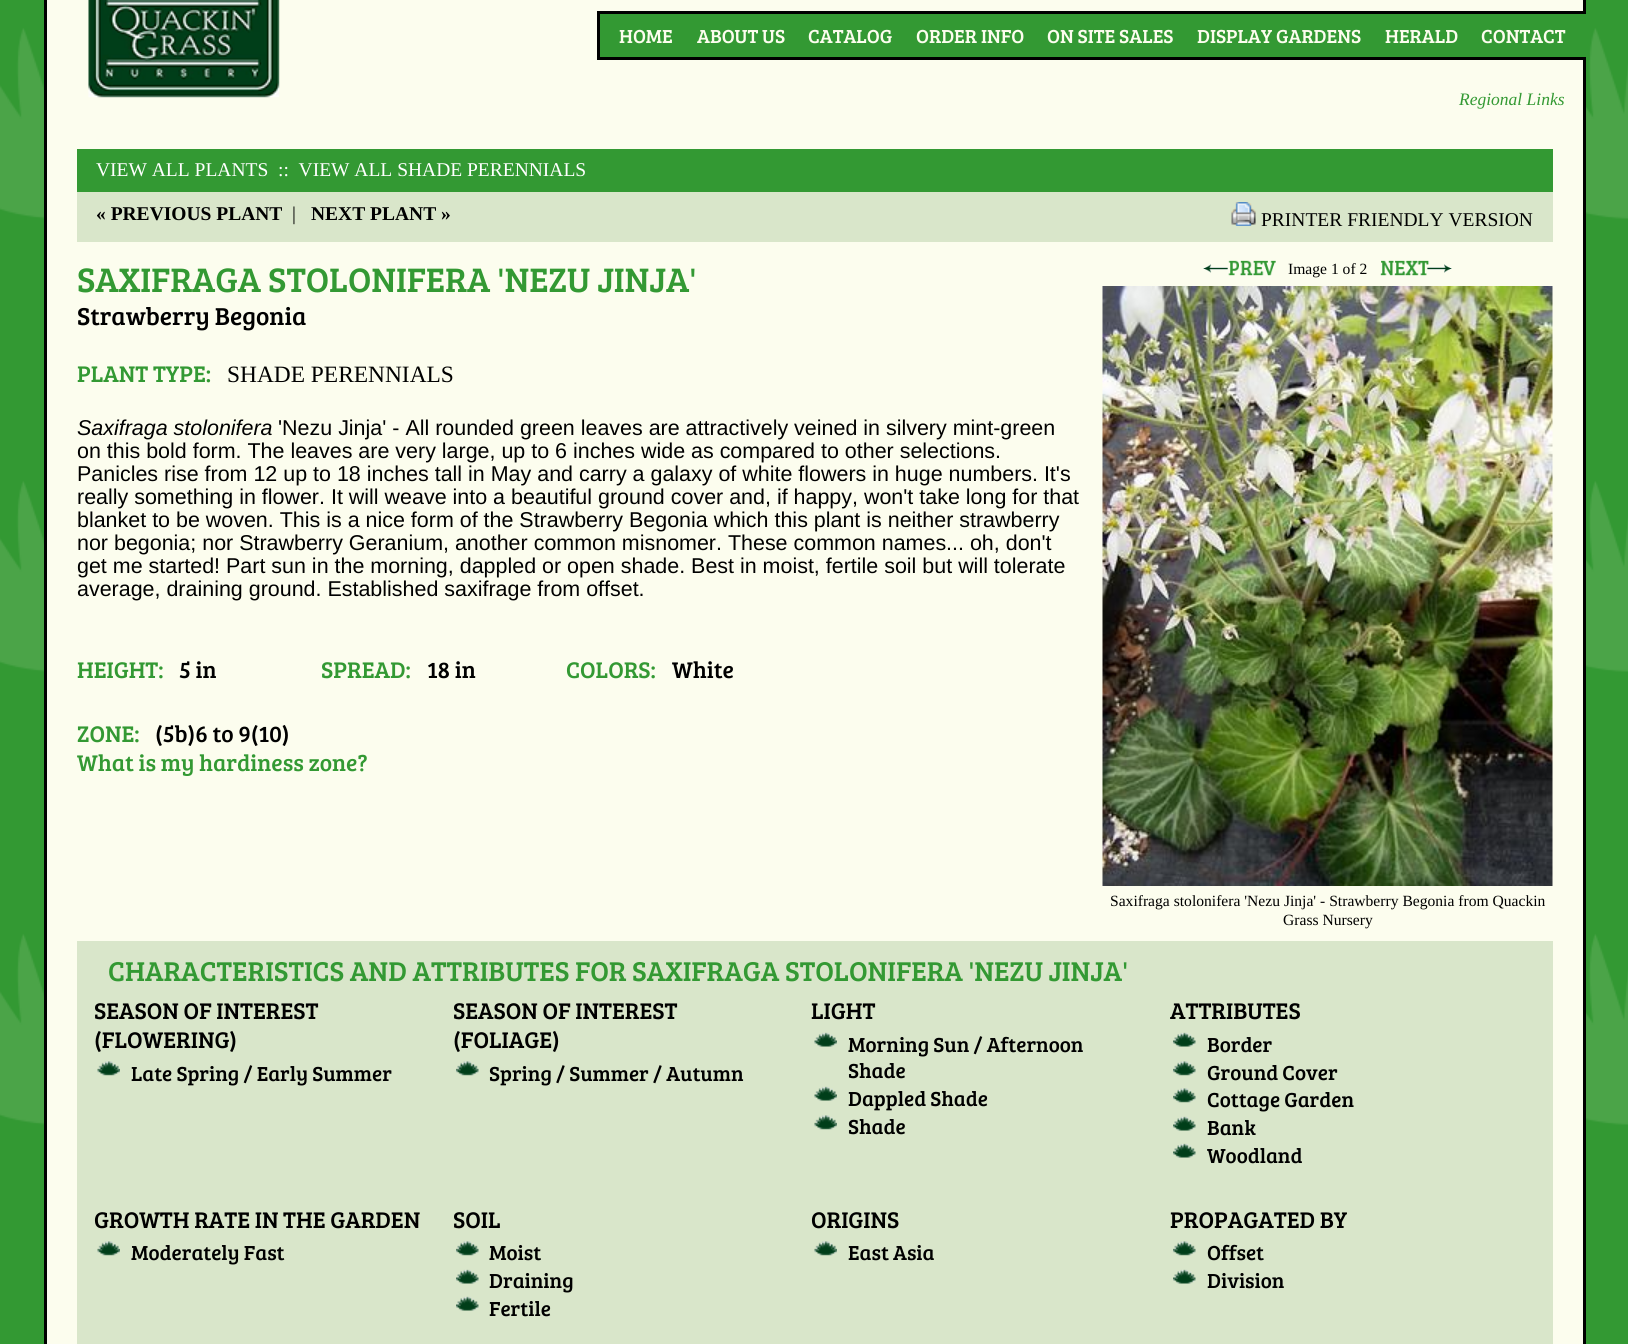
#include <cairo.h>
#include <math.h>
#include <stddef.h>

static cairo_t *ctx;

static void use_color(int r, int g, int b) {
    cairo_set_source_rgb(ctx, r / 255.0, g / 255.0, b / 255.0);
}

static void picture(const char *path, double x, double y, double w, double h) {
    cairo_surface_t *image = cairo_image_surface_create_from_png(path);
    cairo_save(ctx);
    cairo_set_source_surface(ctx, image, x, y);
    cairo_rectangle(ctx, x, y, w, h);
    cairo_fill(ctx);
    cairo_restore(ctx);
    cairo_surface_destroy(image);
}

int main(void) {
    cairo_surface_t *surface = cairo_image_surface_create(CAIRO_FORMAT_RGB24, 1628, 1344);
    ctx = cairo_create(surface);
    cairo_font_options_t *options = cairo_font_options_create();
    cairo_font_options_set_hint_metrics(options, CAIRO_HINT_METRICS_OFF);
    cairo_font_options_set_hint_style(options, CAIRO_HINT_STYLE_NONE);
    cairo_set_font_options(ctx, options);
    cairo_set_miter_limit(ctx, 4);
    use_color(255, 255, 255);
    cairo_paint(ctx);
    picture("img1.png", 0, 0, 1628, 1344);
    use_color(252, 253, 238);
    cairo_rectangle(ctx, 47, 0, 1536, 1344);
    cairo_fill(ctx);
    use_color(0, 0, 0);
    cairo_rectangle(ctx, 1583, 0, 3, 1344);
    cairo_fill(ctx);
    cairo_rectangle(ctx, 44, 0, 3, 1344);
    cairo_fill(ctx);
    picture("img2.png", 88, 0, 192, 98);
    use_color(51, 153, 51);
    cairo_rectangle(ctx, 600, 14, 986, 43);
    cairo_fill(ctx);
    use_color(0, 0, 0);
    cairo_rectangle(ctx, 597, 11, 989, 3);
    cairo_fill(ctx);
    cairo_rectangle(ctx, 597, 57, 989, 3);
    cairo_fill(ctx);
    cairo_rectangle(ctx, 597, 11, 3, 49);
    cairo_fill(ctx);
    cairo_select_font_face(ctx, "Bree Serif", CAIRO_FONT_SLANT_NORMAL, CAIRO_FONT_WEIGHT_NORMAL);
    cairo_set_font_size(ctx, 19.5);
    use_color(252, 253, 238);
    cairo_move_to(ctx, 619, 43);
    cairo_show_text(ctx, "HOME");
    cairo_move_to(ctx, 697, 43);
    cairo_show_text(ctx, "ABOUT US");
    cairo_move_to(ctx, 808, 43);
    cairo_show_text(ctx, "CATALOG");
    cairo_move_to(ctx, 916, 43);
    cairo_show_text(ctx, "ORDER INFO");
    cairo_move_to(ctx, 1047, 43);
    cairo_show_text(ctx, "ON SITE SALES");
    cairo_move_to(ctx, 1197, 43);
    cairo_show_text(ctx, "DISPLAY GARDENS");
    cairo_move_to(ctx, 1385, 43);
    cairo_show_text(ctx, "HERALD");
    cairo_move_to(ctx, 1481, 43);
    cairo_show_text(ctx, "CONTACT");
    cairo_select_font_face(ctx, "Liberation Serif", CAIRO_FONT_SLANT_ITALIC, CAIRO_FONT_WEIGHT_NORMAL);
    cairo_set_font_size(ctx, 17.5);
    use_color(51, 153, 51);
    cairo_move_to(ctx, 1459, 105);
    cairo_show_text(ctx, "Regional Links");
    cairo_rectangle(ctx, 77, 149, 1476, 43);
    cairo_fill(ctx);
    cairo_select_font_face(ctx, "Liberation Serif", CAIRO_FONT_SLANT_NORMAL, CAIRO_FONT_WEIGHT_NORMAL);
    cairo_set_font_size(ctx, 19.5);
    use_color(255, 255, 255);
    cairo_move_to(ctx, 96, 176);
    cairo_show_text(ctx, "VIEW ALL PLANTS");
    cairo_move_to(ctx, 278, 176);
    cairo_show_text(ctx, "::  VIEW ALL SHADE PERENNIALS");
    use_color(217, 230, 202);
    cairo_rectangle(ctx, 77, 192, 1476, 50);
    cairo_fill(ctx);
    cairo_select_font_face(ctx, "Liberation Serif", CAIRO_FONT_SLANT_NORMAL, CAIRO_FONT_WEIGHT_BOLD);
    use_color(0, 0, 0);
    cairo_move_to(ctx, 96, 220);
    cairo_show_text(ctx, "« PREVIOUS PLANT");
    cairo_select_font_face(ctx, "Liberation Serif", CAIRO_FONT_SLANT_NORMAL, CAIRO_FONT_WEIGHT_NORMAL);
    cairo_move_to(ctx, 292, 220);
    cairo_show_text(ctx, "|");
    cairo_select_font_face(ctx, "Liberation Serif", CAIRO_FONT_SLANT_NORMAL, CAIRO_FONT_WEIGHT_BOLD);
    cairo_move_to(ctx, 311, 220);
    cairo_show_text(ctx, "NEXT PLANT »");
    picture("img3.png", 1231, 202, 25, 24);
    cairo_select_font_face(ctx, "Liberation Serif", CAIRO_FONT_SLANT_NORMAL, CAIRO_FONT_WEIGHT_NORMAL);
    cairo_move_to(ctx, 1261, 226);
    cairo_show_text(ctx, "PRINTER FRIENDLY VERSION");
    cairo_select_font_face(ctx, "Bree Serif", CAIRO_FONT_SLANT_NORMAL, CAIRO_FONT_WEIGHT_NORMAL);
    cairo_set_font_size(ctx, 35.1);
    use_color(51, 153, 51);
    cairo_move_to(ctx, 77, 292);
    cairo_show_text(ctx, "SAXIFRAGA STOLONIFERA 'NEZU JINJA'");
    picture("img4.png", 1203, 260, 73, 16);
    cairo_select_font_face(ctx, "Liberation Serif", CAIRO_FONT_SLANT_NORMAL, CAIRO_FONT_WEIGHT_NORMAL);
    cairo_set_font_size(ctx, 15.6);
    use_color(0, 0, 0);
    cairo_move_to(ctx, 1288, 274);
    cairo_show_text(ctx, "Image 1 of 2");
    picture("img5.png", 1380, 260, 72, 16);
    picture("img6.png", 1102, 286, 451, 600);
    cairo_move_to(ctx, 1110, 906);
    cairo_show_text(ctx, "Saxifraga stolonifera 'Nezu Jinja' - Strawberry Begonia from Quackin");
    cairo_move_to(ctx, 1283, 925);
    cairo_show_text(ctx, "Grass Nursery");
    cairo_select_font_face(ctx, "Bree Serif", CAIRO_FONT_SLANT_NORMAL, CAIRO_FONT_WEIGHT_NORMAL);
    cairo_set_font_size(ctx, 25.25);
    cairo_move_to(ctx, 77, 325);
    cairo_show_text(ctx, "Strawberry Begonia");
    cairo_set_font_size(ctx, 23.4);
    use_color(51, 153, 51);
    cairo_move_to(ctx, 77, 382);
    cairo_show_text(ctx, "PLANT TYPE:");
    cairo_select_font_face(ctx, "Liberation Serif", CAIRO_FONT_SLANT_NORMAL, CAIRO_FONT_WEIGHT_NORMAL);
    use_color(0, 0, 0);
    cairo_move_to(ctx, 227, 382);
    cairo_show_text(ctx, "SHADE PERENNIALS");
    cairo_select_font_face(ctx, "Liberation Sans", CAIRO_FONT_SLANT_ITALIC, CAIRO_FONT_WEIGHT_NORMAL);
    cairo_set_font_size(ctx, 21.45);
    cairo_move_to(ctx, 77, 435);
    cairo_show_text(ctx, "Saxifraga stolonifera");
    cairo_select_font_face(ctx, "Liberation Sans", CAIRO_FONT_SLANT_NORMAL, CAIRO_FONT_WEIGHT_NORMAL);
    cairo_move_to(ctx, 278, 435);
    cairo_show_text(ctx, "'Nezu Jinja' - All rounded green leaves are attractively veined in silvery mint-green");
    cairo_move_to(ctx, 77, 458);
    cairo_show_text(ctx, "on this bold form. The leaves are very large, up to 6 inches wide as compared to other selections.");
    cairo_move_to(ctx, 77, 481);
    cairo_show_text(ctx, "Panicles rise from 12 up to 18 inches tall in May and carry a galaxy of white flowers in huge numbers. It's");
    cairo_move_to(ctx, 77, 504);
    cairo_show_text(ctx, "really something in flower. It will weave into a beautiful ground cover and, if happy, won't take long for that");
    cairo_move_to(ctx, 77, 527);
    cairo_show_text(ctx, "blanket to be woven. This is a nice form of the Strawberry Begonia which this plant is neither strawberry");
    cairo_move_to(ctx, 77, 550);
    cairo_show_text(ctx, "nor begonia; nor Strawberry Geranium, another common misnomer. These common names... oh, don't");
    cairo_move_to(ctx, 77, 573);
    cairo_show_text(ctx, "get me started! Part sun in the morning, dappled or open shade. Best in moist, fertile soil but will tolerate");
    cairo_move_to(ctx, 77, 596);
    cairo_show_text(ctx, "average, draining ground. Established saxifrage from offset.");
    cairo_select_font_face(ctx, "Bree Serif", CAIRO_FONT_SLANT_NORMAL, CAIRO_FONT_WEIGHT_NORMAL);
    cairo_set_font_size(ctx, 23.4);
    use_color(51, 153, 51);
    cairo_move_to(ctx, 77, 678);
    cairo_show_text(ctx, "HEIGHT:");
    use_color(0, 0, 0);
    cairo_move_to(ctx, 179, 678);
    cairo_show_text(ctx, "5 in");
    use_color(51, 153, 51);
    cairo_move_to(ctx, 321, 678);
    cairo_show_text(ctx, "SPREAD:");
    use_color(0, 0, 0);
    cairo_move_to(ctx, 427, 678);
    cairo_show_text(ctx, "18 in");
    use_color(51, 153, 51);
    cairo_move_to(ctx, 566, 678);
    cairo_show_text(ctx, "COLORS:");
    use_color(0, 0, 0);
    cairo_move_to(ctx, 672, 678);
    cairo_show_text(ctx, "White");
    use_color(51, 153, 51);
    cairo_move_to(ctx, 77, 742);
    cairo_show_text(ctx, "ZONE:");
    use_color(0, 0, 0);
    cairo_move_to(ctx, 155, 742);
    cairo_show_text(ctx, "(5b)6 to 9(10)");
    use_color(51, 153, 51);
    cairo_move_to(ctx, 77, 771);
    cairo_show_text(ctx, "What is my hardiness zone?");
    use_color(217, 230, 202);
    cairo_rectangle(ctx, 77, 941, 1476, 403);
    cairo_fill(ctx);
    cairo_set_font_size(ctx, 28.1);
    use_color(51, 153, 51);
    cairo_move_to(ctx, 108, 981);
    cairo_show_text(ctx, "CHARACTERISTICS AND ATTRIBUTES FOR SAXIFRAGA STOLONIFERA 'NEZU JINJA'");
    cairo_set_font_size(ctx, 23.4);
    use_color(0, 0, 0);
    cairo_move_to(ctx, 94, 1019);
    cairo_show_text(ctx, "SEASON OF INTEREST");
    cairo_move_to(ctx, 94, 1048);
    cairo_show_text(ctx, "(FLOWERING)");
    picture("img7.png", 97, 1061, 23, 15);
    cairo_set_font_size(ctx, 21);
    cairo_move_to(ctx, 131, 1081);
    cairo_show_text(ctx, "Late Spring / Early Summer");
    cairo_set_font_size(ctx, 23.4);
    cairo_move_to(ctx, 453, 1019);
    cairo_show_text(ctx, "SEASON OF INTEREST");
    cairo_move_to(ctx, 453, 1048);
    cairo_show_text(ctx, "(FOLIAGE)");
    picture("img8.png", 456, 1061, 23, 15);
    cairo_set_font_size(ctx, 21);
    cairo_move_to(ctx, 489, 1081);
    cairo_show_text(ctx, "Spring / Summer / Autumn");
    cairo_set_font_size(ctx, 23.4);
    cairo_move_to(ctx, 811, 1019);
    cairo_show_text(ctx, "LIGHT");
    picture("img9.png", 814, 1032, 23, 15);
    cairo_set_font_size(ctx, 21);
    cairo_move_to(ctx, 848, 1052);
    cairo_show_text(ctx, "Morning Sun / Afternoon");
    cairo_move_to(ctx, 848, 1078);
    cairo_show_text(ctx, "Shade");
    picture("img9.png", 814, 1086, 23, 15);
    cairo_move_to(ctx, 848, 1106);
    cairo_show_text(ctx, "Dappled Shade");
    picture("img7.png", 814, 1115, 23, 15);
    cairo_move_to(ctx, 848, 1134);
    cairo_show_text(ctx, "Shade");
    cairo_set_font_size(ctx, 23.4);
    cairo_move_to(ctx, 1170, 1019);
    cairo_show_text(ctx, "ATTRIBUTES");
    picture("img10.png", 1173, 1032, 23, 15);
    cairo_set_font_size(ctx, 21);
    cairo_move_to(ctx, 1207, 1052);
    cairo_show_text(ctx, "Border");
    picture("img8.png", 1173, 1061, 23, 15);
    cairo_move_to(ctx, 1207, 1080);
    cairo_show_text(ctx, "Ground Cover");
    picture("img8.png", 1173, 1088, 23, 15);
    cairo_move_to(ctx, 1207, 1107);
    cairo_show_text(ctx, "Cottage Garden");
    picture("img10.png", 1173, 1116, 23, 15);
    cairo_move_to(ctx, 1207, 1135);
    cairo_show_text(ctx, "Bank");
    picture("img10.png", 1173, 1143, 23, 15);
    cairo_move_to(ctx, 1207, 1163);
    cairo_show_text(ctx, "Woodland");
    cairo_set_font_size(ctx, 23.4);
    cairo_move_to(ctx, 94, 1228);
    cairo_show_text(ctx, "GROWTH RATE IN THE GARDEN");
    picture("img7.png", 97, 1241, 23, 15);
    cairo_set_font_size(ctx, 21);
    cairo_move_to(ctx, 131, 1260);
    cairo_show_text(ctx, "Moderately Fast");
    cairo_set_font_size(ctx, 23.4);
    cairo_move_to(ctx, 453, 1228);
    cairo_show_text(ctx, "SOIL");
    picture("img8.png", 456, 1241, 23, 15);
    cairo_set_font_size(ctx, 21);
    cairo_move_to(ctx, 489, 1260);
    cairo_show_text(ctx, "Moist");
    picture("img10.png", 456, 1269, 23, 15);
    cairo_move_to(ctx, 489, 1288);
    cairo_show_text(ctx, "Draining");
    picture("img10.png", 456, 1296, 23, 15);
    cairo_move_to(ctx, 489, 1316);
    cairo_show_text(ctx, "Fertile");
    cairo_set_font_size(ctx, 23.4);
    cairo_move_to(ctx, 811, 1228);
    cairo_show_text(ctx, "ORIGINS");
    picture("img7.png", 814, 1241, 23, 15);
    cairo_set_font_size(ctx, 21);
    cairo_move_to(ctx, 848, 1260);
    cairo_show_text(ctx, "East Asia");
    cairo_set_font_size(ctx, 23.4);
    cairo_move_to(ctx, 1170, 1228);
    cairo_show_text(ctx, "PROPAGATED BY");
    picture("img8.png", 1173, 1241, 23, 15);
    cairo_set_font_size(ctx, 21);
    cairo_move_to(ctx, 1207, 1260);
    cairo_show_text(ctx, "Offset");
    picture("img10.png", 1173, 1269, 23, 15);
    cairo_move_to(ctx, 1207, 1288);
    cairo_show_text(ctx, "Division");
    cairo_surface_write_to_png(surface, "result.png");
    cairo_font_options_destroy(options);
    cairo_destroy(ctx);
    cairo_surface_destroy(surface);
    return 0;
}
